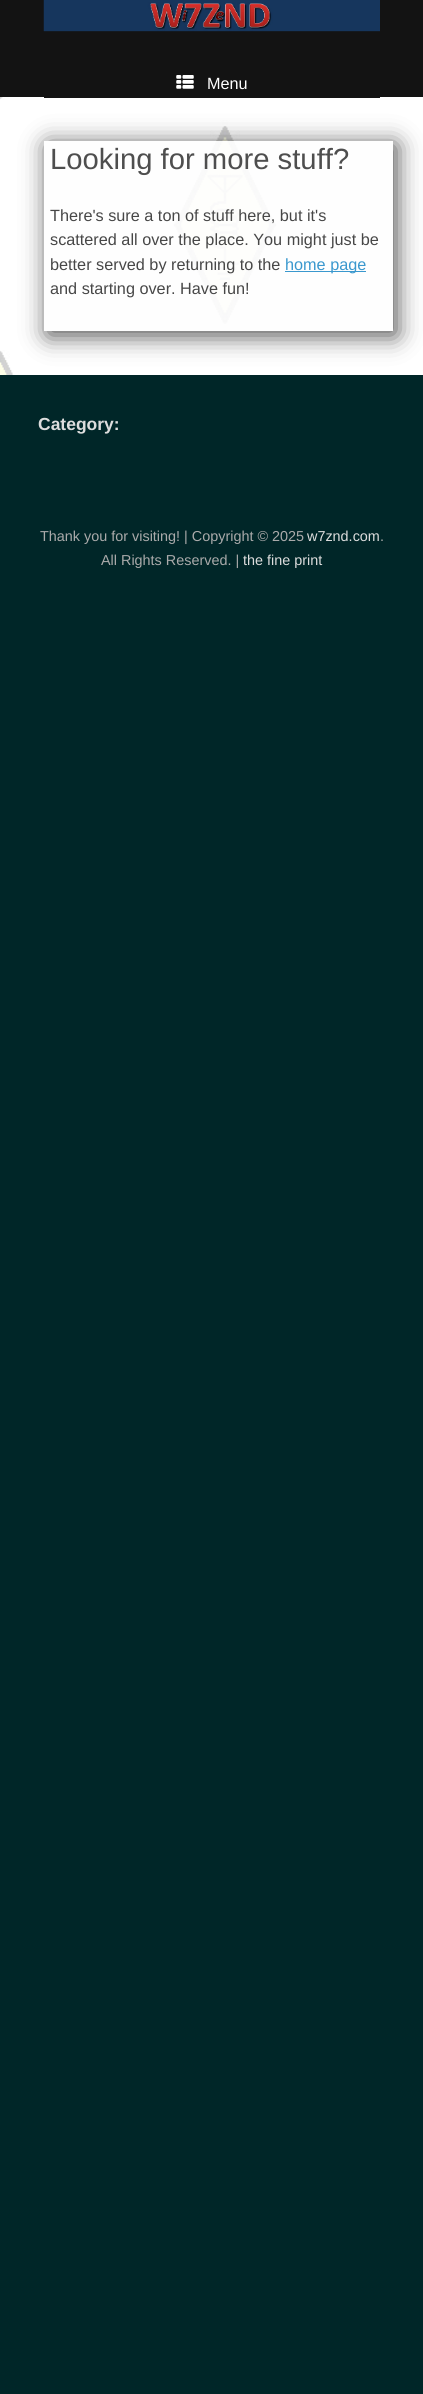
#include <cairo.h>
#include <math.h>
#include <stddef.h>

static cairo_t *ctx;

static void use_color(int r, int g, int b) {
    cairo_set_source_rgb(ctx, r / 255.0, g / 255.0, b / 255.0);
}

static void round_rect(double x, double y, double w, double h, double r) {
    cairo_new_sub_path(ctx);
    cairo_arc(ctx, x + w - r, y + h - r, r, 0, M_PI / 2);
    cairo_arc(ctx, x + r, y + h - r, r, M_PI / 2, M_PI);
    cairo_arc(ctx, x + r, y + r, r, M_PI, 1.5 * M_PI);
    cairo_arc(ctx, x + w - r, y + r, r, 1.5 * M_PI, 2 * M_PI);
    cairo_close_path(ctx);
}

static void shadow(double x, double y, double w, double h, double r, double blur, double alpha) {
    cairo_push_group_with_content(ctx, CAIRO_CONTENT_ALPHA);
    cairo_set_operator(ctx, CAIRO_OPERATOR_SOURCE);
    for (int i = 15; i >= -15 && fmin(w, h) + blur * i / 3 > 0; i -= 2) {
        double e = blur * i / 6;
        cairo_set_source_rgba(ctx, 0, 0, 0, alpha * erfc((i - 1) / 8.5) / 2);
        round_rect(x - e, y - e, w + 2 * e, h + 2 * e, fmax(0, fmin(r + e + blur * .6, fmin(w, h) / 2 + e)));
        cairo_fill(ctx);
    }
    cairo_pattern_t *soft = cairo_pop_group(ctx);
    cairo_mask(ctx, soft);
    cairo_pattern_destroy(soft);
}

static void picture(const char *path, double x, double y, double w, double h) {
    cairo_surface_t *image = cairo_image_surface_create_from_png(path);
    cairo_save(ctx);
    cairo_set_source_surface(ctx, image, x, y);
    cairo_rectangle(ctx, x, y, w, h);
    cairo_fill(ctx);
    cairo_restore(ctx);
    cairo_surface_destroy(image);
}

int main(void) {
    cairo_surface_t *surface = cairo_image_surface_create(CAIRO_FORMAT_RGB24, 423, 2394);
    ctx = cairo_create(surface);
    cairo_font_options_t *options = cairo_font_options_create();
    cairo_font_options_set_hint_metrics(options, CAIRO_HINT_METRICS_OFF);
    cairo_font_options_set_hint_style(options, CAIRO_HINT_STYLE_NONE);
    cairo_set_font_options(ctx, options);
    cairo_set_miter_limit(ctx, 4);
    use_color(0, 38, 40);
    cairo_paint(ctx);
    use_color(19, 19, 19);
    cairo_rectangle(ctx, 0, 0, 423, 97);
    cairo_fill(ctx);
    picture("img1.png", 43, 0, 337, 32);
    picture("img3.png", 0, 97, 423, 278);
    cairo_rectangle(ctx, 44, 97, 336, 1);
    cairo_fill(ctx);
    picture("img2.png", 176, 75, 18, 14);
    cairo_select_font_face(ctx, "Liberation Sans", CAIRO_FONT_SLANT_NORMAL, CAIRO_FONT_WEIGHT_NORMAL);
    cairo_set_font_size(ctx, 16.25);
    use_color(255, 255, 255);
    cairo_move_to(ctx, 207, 89);
    cairo_show_text(ctx, "Menu");
    cairo_save(ctx);
    cairo_set_fill_rule(ctx, CAIRO_FILL_RULE_EVEN_ODD);
    cairo_new_path(ctx);
    cairo_move_to(ctx, 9, 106);
    cairo_line_to(ctx, 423, 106);
    cairo_line_to(ctx, 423, 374);
    cairo_line_to(ctx, 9, 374);
    cairo_close_path(ctx);
    cairo_move_to(ctx, 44, 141);
    cairo_line_to(ctx, 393, 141);
    cairo_line_to(ctx, 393, 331);
    cairo_line_to(ctx, 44, 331);
    cairo_close_path(ctx);
    cairo_clip(ctx);
    use_color(51, 51, 51);
    shadow(48, 145, 348, 190, 0, 12.5, 0.9);
    cairo_restore(ctx);
    cairo_set_source_rgba(ctx, 0.996, 0.996, 0.996, 0.9);
    cairo_rectangle(ctx, 44, 141, 349, 190);
    cairo_fill(ctx);
    cairo_set_font_size(ctx, 29.25);
    use_color(78, 78, 78);
    cairo_move_to(ctx, 50, 169);
    cairo_show_text(ctx, "Looking for more stuff?");
    cairo_set_font_size(ctx, 16.25);
    use_color(71, 71, 71);
    cairo_move_to(ctx, 50, 221);
    cairo_show_text(ctx, "There's sure a ton of stuff here, but it's");
    cairo_move_to(ctx, 50, 245);
    cairo_show_text(ctx, "scattered all over the place. You might just be");
    cairo_move_to(ctx, 50, 270);
    cairo_show_text(ctx, "better served by returning to the");
    use_color(58, 152, 206);
    cairo_rectangle(ctx, 285, 271, 81, 1);
    cairo_fill(ctx);
    cairo_move_to(ctx, 285, 270);
    cairo_show_text(ctx, "home page");
    use_color(71, 71, 71);
    cairo_move_to(ctx, 50, 294);
    cairo_show_text(ctx, "and starting over. Have fun!");
    cairo_select_font_face(ctx, "Liberation Sans", CAIRO_FONT_SLANT_NORMAL, CAIRO_FONT_WEIGHT_BOLD);
    cairo_set_font_size(ctx, 17.5);
    use_color(221, 221, 221);
    cairo_move_to(ctx, 38, 430);
    cairo_show_text(ctx, "Category:");
    cairo_select_font_face(ctx, "Liberation Sans", CAIRO_FONT_SLANT_NORMAL, CAIRO_FONT_WEIGHT_NORMAL);
    cairo_set_font_size(ctx, 14.4);
    use_color(170, 170, 170);
    cairo_move_to(ctx, 40, 541);
    cairo_show_text(ctx, "Thank you for visiting! | Copyright © 2025");
    use_color(221, 221, 221);
    cairo_move_to(ctx, 307, 541);
    cairo_show_text(ctx, "w7znd.com");
    use_color(170, 170, 170);
    cairo_move_to(ctx, 380, 541);
    cairo_show_text(ctx, ".");
    cairo_move_to(ctx, 101, 565);
    cairo_show_text(ctx, "All Rights Reserved. |");
    use_color(221, 221, 221);
    cairo_move_to(ctx, 243, 565);
    cairo_show_text(ctx, "the fine print");
    cairo_surface_write_to_png(surface, "result.png");
    cairo_font_options_destroy(options);
    cairo_destroy(ctx);
    cairo_surface_destroy(surface);
    return 0;
}
